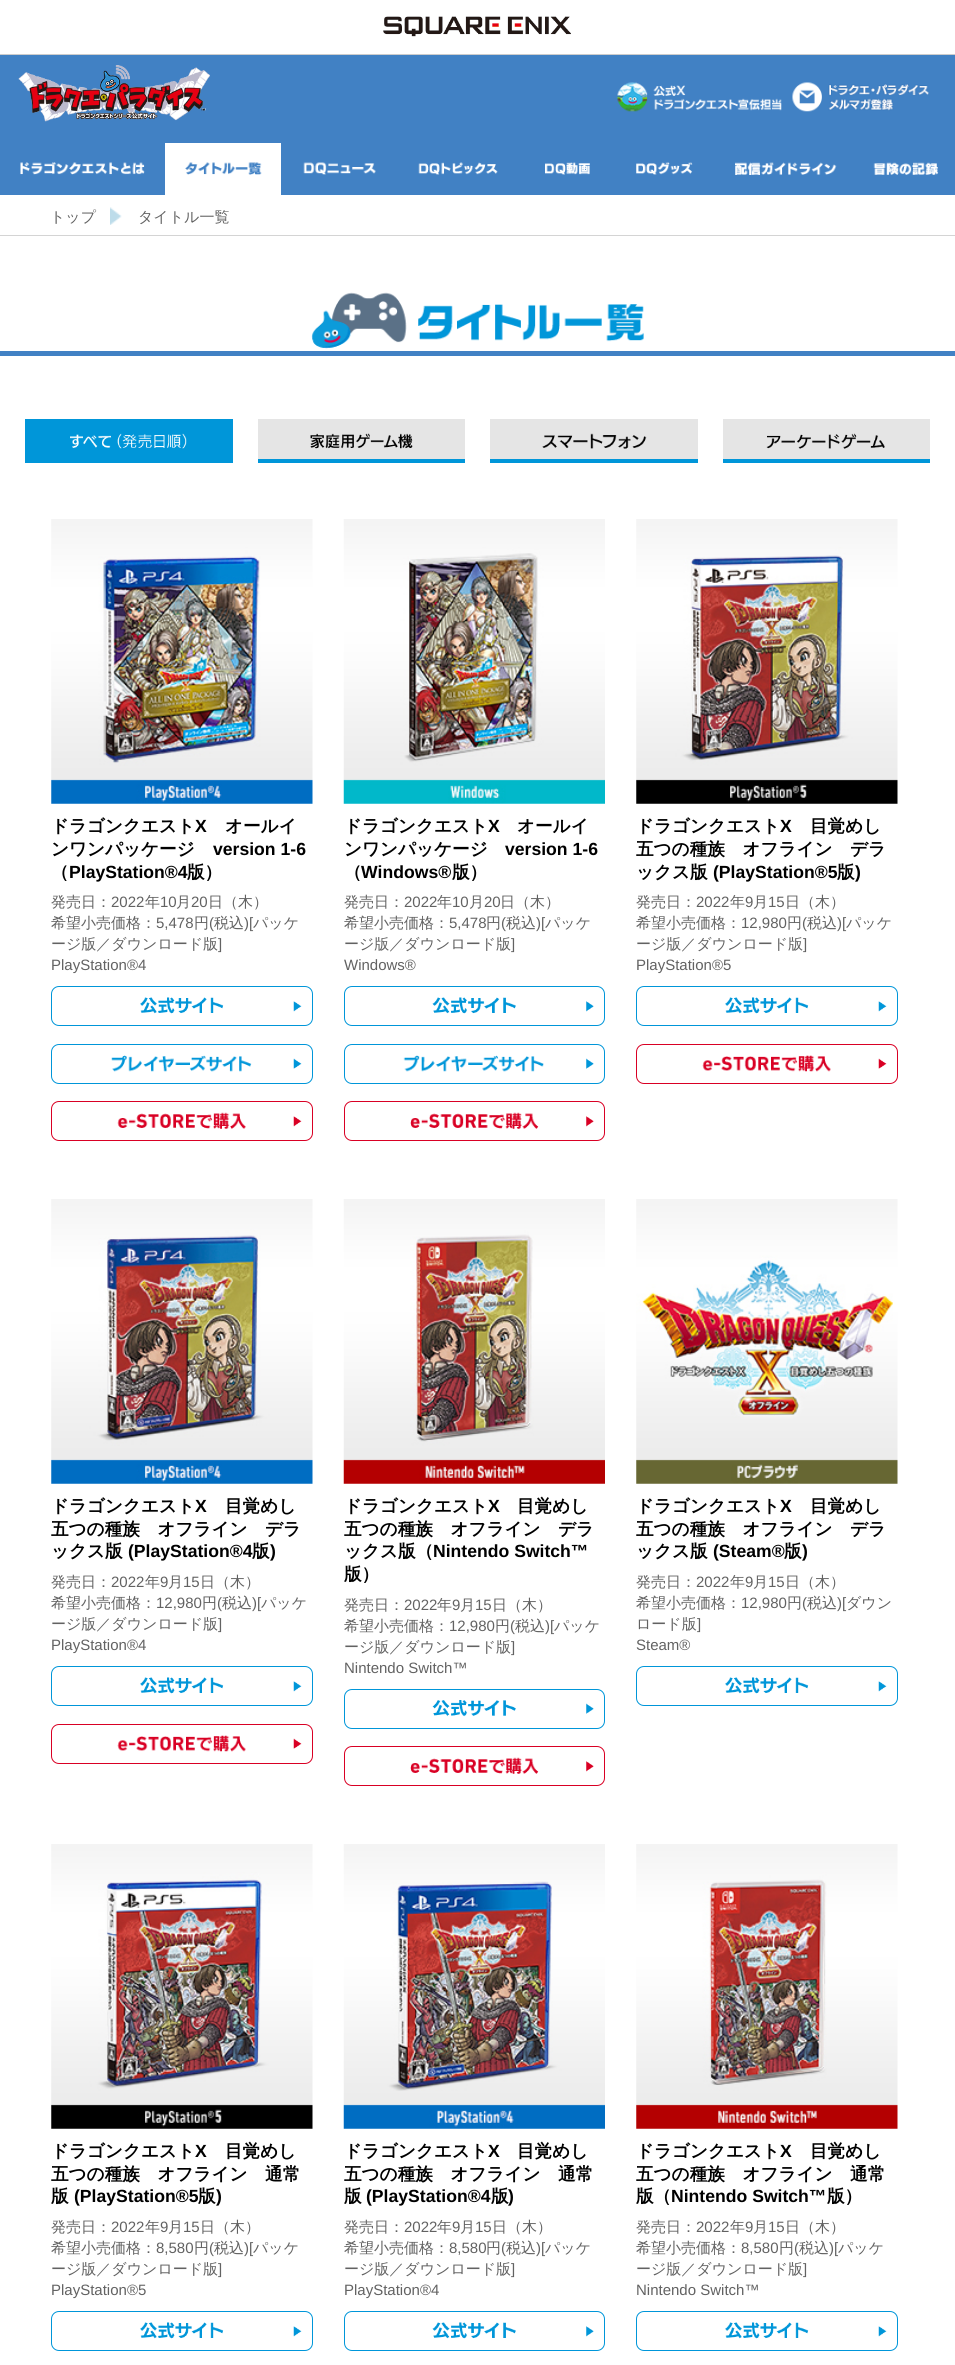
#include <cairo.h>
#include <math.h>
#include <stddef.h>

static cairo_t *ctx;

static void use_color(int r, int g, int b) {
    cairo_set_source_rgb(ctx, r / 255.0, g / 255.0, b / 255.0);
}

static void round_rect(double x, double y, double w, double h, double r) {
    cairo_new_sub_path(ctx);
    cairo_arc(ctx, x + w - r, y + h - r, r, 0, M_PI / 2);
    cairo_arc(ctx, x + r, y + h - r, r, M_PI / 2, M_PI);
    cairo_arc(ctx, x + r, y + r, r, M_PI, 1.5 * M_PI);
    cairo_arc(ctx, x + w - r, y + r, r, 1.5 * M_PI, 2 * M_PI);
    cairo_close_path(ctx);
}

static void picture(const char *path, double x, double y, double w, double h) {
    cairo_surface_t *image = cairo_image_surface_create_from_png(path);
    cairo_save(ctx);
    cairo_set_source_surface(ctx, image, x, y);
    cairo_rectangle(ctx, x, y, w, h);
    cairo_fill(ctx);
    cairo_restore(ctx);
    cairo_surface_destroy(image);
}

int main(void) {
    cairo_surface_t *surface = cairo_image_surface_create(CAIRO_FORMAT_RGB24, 955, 2365);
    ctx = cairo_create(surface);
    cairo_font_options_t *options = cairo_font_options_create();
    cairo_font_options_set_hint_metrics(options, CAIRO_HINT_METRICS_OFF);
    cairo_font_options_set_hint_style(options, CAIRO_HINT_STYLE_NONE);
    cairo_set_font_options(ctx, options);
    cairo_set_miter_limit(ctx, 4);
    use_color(255, 255, 255);
    cairo_paint(ctx);
    use_color(204, 204, 204);
    cairo_rectangle(ctx, 0, 54, 955, 1);
    cairo_fill(ctx);
    picture("img1.png", 383, 16, 188, 21);
    use_color(65, 129, 196);
    cairo_rectangle(ctx, 0, 55, 955, 140);
    cairo_fill(ctx);
    picture("img2.png", 18, 65, 192, 57);
    picture("img3.png", 617, 82, 165, 30);
    picture("img4.png", 792, 82, 137, 30);
    picture("img5.png", 20, 162, 125, 13);
    use_color(255, 255, 255);
    cairo_rectangle(ctx, 165, 143, 116, 52);
    cairo_fill(ctx);
    picture("img6.png", 185, 162, 77, 13);
    picture("img7.png", 303, 162, 73, 13);
    picture("img8.png", 418, 162, 80, 13);
    picture("img9.png", 545, 162, 45, 13);
    picture("img10.png", 636, 162, 57, 13);
    picture("img11.png", 735, 162, 102, 13);
    picture("img12.png", 873, 162, 66, 13);
    use_color(212, 212, 212);
    cairo_rectangle(ctx, 0, 235, 955, 1);
    cairo_fill(ctx);
    cairo_select_font_face(ctx, "WenQuanYi Zen Hei Medium", CAIRO_FONT_SLANT_NORMAL, CAIRO_FONT_WEIGHT_NORMAL);
    cairo_set_font_size(ctx, 15);
    use_color(98, 98, 98);
    cairo_move_to(ctx, 50, 222);
    cairo_show_text(ctx, "トップ");
    picture("img13.png", 110, 207, 12, 18);
    cairo_move_to(ctx, 138, 222);
    cairo_show_text(ctx, "タイトル一覧");
    picture("img14.png", 311, 292, 333, 57);
    use_color(65, 129, 196);
    cairo_rectangle(ctx, 0, 351, 955, 5);
    cairo_fill(ctx);
    use_color(0, 150, 217);
    cairo_rectangle(ctx, 25, 419, 208, 44);
    cairo_fill(ctx);
    picture("img15.png", 70, 433, 117, 16);
    use_color(229, 229, 229);
    cairo_rectangle(ctx, 258, 419, 207, 40);
    cairo_fill(ctx);
    picture("img16.png", 310, 433, 103, 16);
    use_color(0, 150, 217);
    cairo_rectangle(ctx, 258, 459, 207, 4);
    cairo_fill(ctx);
    use_color(229, 229, 229);
    cairo_rectangle(ctx, 490, 419, 208, 40);
    cairo_fill(ctx);
    picture("img17.png", 542, 433, 105, 16);
    use_color(0, 150, 217);
    cairo_rectangle(ctx, 490, 459, 208, 4);
    cairo_fill(ctx);
    use_color(229, 229, 229);
    cairo_rectangle(ctx, 723, 419, 207, 40);
    cairo_fill(ctx);
    picture("img18.png", 766, 433, 119, 16);
    use_color(0, 150, 217);
    cairo_rectangle(ctx, 723, 459, 207, 4);
    cairo_fill(ctx);
    picture("img19.png", 51, 519, 262, 285);
    cairo_select_font_face(ctx, "WenQuanYi Zen Hei", CAIRO_FONT_SLANT_NORMAL, CAIRO_FONT_WEIGHT_BOLD);
    cairo_set_font_size(ctx, 17.6);
    use_color(0, 0, 0);
    cairo_move_to(ctx, 51, 832);
    cairo_show_text(ctx, "ドラゴンクエスト");
    cairo_select_font_face(ctx, "Liberation Sans", CAIRO_FONT_SLANT_NORMAL, CAIRO_FONT_WEIGHT_BOLD);
    cairo_move_to(ctx, 195, 832);
    cairo_show_text(ctx, "X");
    cairo_select_font_face(ctx, "WenQuanYi Zen Hei", CAIRO_FONT_SLANT_NORMAL, CAIRO_FONT_WEIGHT_BOLD);
    cairo_move_to(ctx, 225, 832);
    cairo_show_text(ctx, "オールイ");
    cairo_move_to(ctx, 51, 855);
    cairo_show_text(ctx, "ンワンパッケージ");
    cairo_select_font_face(ctx, "Liberation Sans", CAIRO_FONT_SLANT_NORMAL, CAIRO_FONT_WEIGHT_BOLD);
    cairo_move_to(ctx, 213, 855);
    cairo_show_text(ctx, "version 1-6");
    cairo_select_font_face(ctx, "WenQuanYi Zen Hei", CAIRO_FONT_SLANT_NORMAL, CAIRO_FONT_WEIGHT_BOLD);
    cairo_move_to(ctx, 51, 878);
    cairo_show_text(ctx, "（");
    cairo_select_font_face(ctx, "Liberation Sans", CAIRO_FONT_SLANT_NORMAL, CAIRO_FONT_WEIGHT_BOLD);
    cairo_move_to(ctx, 69, 878);
    cairo_show_text(ctx, "PlayStation®4");
    cairo_select_font_face(ctx, "WenQuanYi Zen Hei", CAIRO_FONT_SLANT_NORMAL, CAIRO_FONT_WEIGHT_BOLD);
    cairo_move_to(ctx, 187, 878);
    cairo_show_text(ctx, "版）");
    cairo_select_font_face(ctx, "WenQuanYi Zen Hei Medium", CAIRO_FONT_SLANT_NORMAL, CAIRO_FONT_WEIGHT_NORMAL);
    cairo_set_font_size(ctx, 15);
    use_color(98, 98, 98);
    cairo_move_to(ctx, 51, 907);
    cairo_show_text(ctx, "発売日：");
    cairo_select_font_face(ctx, "Liberation Sans", CAIRO_FONT_SLANT_NORMAL, CAIRO_FONT_WEIGHT_NORMAL);
    cairo_move_to(ctx, 111, 907);
    cairo_show_text(ctx, "2022");
    cairo_select_font_face(ctx, "WenQuanYi Zen Hei Medium", CAIRO_FONT_SLANT_NORMAL, CAIRO_FONT_WEIGHT_NORMAL);
    cairo_move_to(ctx, 145, 907);
    cairo_show_text(ctx, "年");
    cairo_select_font_face(ctx, "Liberation Sans", CAIRO_FONT_SLANT_NORMAL, CAIRO_FONT_WEIGHT_NORMAL);
    cairo_move_to(ctx, 160, 907);
    cairo_show_text(ctx, "10");
    cairo_select_font_face(ctx, "WenQuanYi Zen Hei Medium", CAIRO_FONT_SLANT_NORMAL, CAIRO_FONT_WEIGHT_NORMAL);
    cairo_move_to(ctx, 176, 907);
    cairo_show_text(ctx, "月");
    cairo_select_font_face(ctx, "Liberation Sans", CAIRO_FONT_SLANT_NORMAL, CAIRO_FONT_WEIGHT_NORMAL);
    cairo_move_to(ctx, 191, 907);
    cairo_show_text(ctx, "20");
    cairo_select_font_face(ctx, "WenQuanYi Zen Hei Medium", CAIRO_FONT_SLANT_NORMAL, CAIRO_FONT_WEIGHT_NORMAL);
    cairo_move_to(ctx, 208, 907);
    cairo_show_text(ctx, "日（木）");
    cairo_move_to(ctx, 51, 928);
    cairo_show_text(ctx, "希望小売価格：");
    cairo_select_font_face(ctx, "Liberation Sans", CAIRO_FONT_SLANT_NORMAL, CAIRO_FONT_WEIGHT_NORMAL);
    cairo_move_to(ctx, 156, 928);
    cairo_show_text(ctx, "5,478");
    cairo_select_font_face(ctx, "WenQuanYi Zen Hei Medium", CAIRO_FONT_SLANT_NORMAL, CAIRO_FONT_WEIGHT_NORMAL);
    cairo_move_to(ctx, 194, 928);
    cairo_show_text(ctx, "円");
    cairo_select_font_face(ctx, "Liberation Sans", CAIRO_FONT_SLANT_NORMAL, CAIRO_FONT_WEIGHT_NORMAL);
    cairo_move_to(ctx, 209, 928);
    cairo_show_text(ctx, "(");
    cairo_select_font_face(ctx, "WenQuanYi Zen Hei Medium", CAIRO_FONT_SLANT_NORMAL, CAIRO_FONT_WEIGHT_NORMAL);
    cairo_move_to(ctx, 214, 928);
    cairo_show_text(ctx, "税込");
    cairo_select_font_face(ctx, "Liberation Sans", CAIRO_FONT_SLANT_NORMAL, CAIRO_FONT_WEIGHT_NORMAL);
    cairo_move_to(ctx, 244, 928);
    cairo_show_text(ctx, ")[");
    cairo_select_font_face(ctx, "WenQuanYi Zen Hei Medium", CAIRO_FONT_SLANT_NORMAL, CAIRO_FONT_WEIGHT_NORMAL);
    cairo_move_to(ctx, 253, 928);
    cairo_show_text(ctx, "パッケ");
    cairo_move_to(ctx, 51, 949);
    cairo_show_text(ctx, "ージ版／ダウンロード版");
    cairo_select_font_face(ctx, "Liberation Sans", CAIRO_FONT_SLANT_NORMAL, CAIRO_FONT_WEIGHT_NORMAL);
    cairo_move_to(ctx, 218, 949);
    cairo_show_text(ctx, "]");
    cairo_move_to(ctx, 51, 970);
    cairo_show_text(ctx, "PlayStation®4");
    picture("img20.png", 293, 1001, 9, 11);
    round_rect(51.5, 986.5, 261, 39, 7.5);
    use_color(0, 150, 217);
    cairo_set_line_width(ctx, 1);
    cairo_stroke(ctx);
    picture("img21.png", 140, 997, 84, 17);
    picture("img22.png", 293, 1058, 9, 11);
    round_rect(51.5, 1044.5, 261, 39, 7.5);
    cairo_stroke(ctx);
    picture("img23.png", 111, 1055, 141, 17);
    picture("img24.png", 293, 1116, 9, 11);
    round_rect(51.5, 1101.5, 261, 39, 7.5);
    use_color(217, 0, 36);
    cairo_stroke(ctx);
    picture("img25.png", 117, 1112, 129, 17);
    picture("img26.png", 343, 519, 262, 285);
    cairo_select_font_face(ctx, "WenQuanYi Zen Hei", CAIRO_FONT_SLANT_NORMAL, CAIRO_FONT_WEIGHT_BOLD);
    cairo_set_font_size(ctx, 17.6);
    use_color(0, 0, 0);
    cairo_move_to(ctx, 344, 832);
    cairo_show_text(ctx, "ドラゴンクエスト");
    cairo_select_font_face(ctx, "Liberation Sans", CAIRO_FONT_SLANT_NORMAL, CAIRO_FONT_WEIGHT_BOLD);
    cairo_move_to(ctx, 488, 832);
    cairo_show_text(ctx, "X");
    cairo_select_font_face(ctx, "WenQuanYi Zen Hei", CAIRO_FONT_SLANT_NORMAL, CAIRO_FONT_WEIGHT_BOLD);
    cairo_move_to(ctx, 517, 832);
    cairo_show_text(ctx, "オールイ");
    cairo_move_to(ctx, 344, 855);
    cairo_show_text(ctx, "ンワンパッケージ");
    cairo_select_font_face(ctx, "Liberation Sans", CAIRO_FONT_SLANT_NORMAL, CAIRO_FONT_WEIGHT_BOLD);
    cairo_move_to(ctx, 505, 855);
    cairo_show_text(ctx, "version 1-6");
    cairo_select_font_face(ctx, "WenQuanYi Zen Hei", CAIRO_FONT_SLANT_NORMAL, CAIRO_FONT_WEIGHT_BOLD);
    cairo_move_to(ctx, 344, 878);
    cairo_show_text(ctx, "（");
    cairo_select_font_face(ctx, "Liberation Sans", CAIRO_FONT_SLANT_NORMAL, CAIRO_FONT_WEIGHT_BOLD);
    cairo_move_to(ctx, 361, 878);
    cairo_show_text(ctx, "Windows®");
    cairo_select_font_face(ctx, "WenQuanYi Zen Hei", CAIRO_FONT_SLANT_NORMAL, CAIRO_FONT_WEIGHT_BOLD);
    cairo_move_to(ctx, 452, 878);
    cairo_show_text(ctx, "版）");
    cairo_select_font_face(ctx, "WenQuanYi Zen Hei Medium", CAIRO_FONT_SLANT_NORMAL, CAIRO_FONT_WEIGHT_NORMAL);
    cairo_set_font_size(ctx, 15);
    use_color(98, 98, 98);
    cairo_move_to(ctx, 344, 907);
    cairo_show_text(ctx, "発売日：");
    cairo_select_font_face(ctx, "Liberation Sans", CAIRO_FONT_SLANT_NORMAL, CAIRO_FONT_WEIGHT_NORMAL);
    cairo_move_to(ctx, 404, 907);
    cairo_show_text(ctx, "2022");
    cairo_select_font_face(ctx, "WenQuanYi Zen Hei Medium", CAIRO_FONT_SLANT_NORMAL, CAIRO_FONT_WEIGHT_NORMAL);
    cairo_move_to(ctx, 437, 907);
    cairo_show_text(ctx, "年");
    cairo_select_font_face(ctx, "Liberation Sans", CAIRO_FONT_SLANT_NORMAL, CAIRO_FONT_WEIGHT_NORMAL);
    cairo_move_to(ctx, 452, 907);
    cairo_show_text(ctx, "10");
    cairo_select_font_face(ctx, "WenQuanYi Zen Hei Medium", CAIRO_FONT_SLANT_NORMAL, CAIRO_FONT_WEIGHT_NORMAL);
    cairo_move_to(ctx, 469, 907);
    cairo_show_text(ctx, "月");
    cairo_select_font_face(ctx, "Liberation Sans", CAIRO_FONT_SLANT_NORMAL, CAIRO_FONT_WEIGHT_NORMAL);
    cairo_move_to(ctx, 484, 907);
    cairo_show_text(ctx, "20");
    cairo_select_font_face(ctx, "WenQuanYi Zen Hei Medium", CAIRO_FONT_SLANT_NORMAL, CAIRO_FONT_WEIGHT_NORMAL);
    cairo_move_to(ctx, 500, 907);
    cairo_show_text(ctx, "日（木）");
    cairo_move_to(ctx, 344, 928);
    cairo_show_text(ctx, "希望小売価格：");
    cairo_select_font_face(ctx, "Liberation Sans", CAIRO_FONT_SLANT_NORMAL, CAIRO_FONT_WEIGHT_NORMAL);
    cairo_move_to(ctx, 449, 928);
    cairo_show_text(ctx, "5,478");
    cairo_select_font_face(ctx, "WenQuanYi Zen Hei Medium", CAIRO_FONT_SLANT_NORMAL, CAIRO_FONT_WEIGHT_NORMAL);
    cairo_move_to(ctx, 486, 928);
    cairo_show_text(ctx, "円");
    cairo_select_font_face(ctx, "Liberation Sans", CAIRO_FONT_SLANT_NORMAL, CAIRO_FONT_WEIGHT_NORMAL);
    cairo_move_to(ctx, 501, 928);
    cairo_show_text(ctx, "(");
    cairo_select_font_face(ctx, "WenQuanYi Zen Hei Medium", CAIRO_FONT_SLANT_NORMAL, CAIRO_FONT_WEIGHT_NORMAL);
    cairo_move_to(ctx, 506, 928);
    cairo_show_text(ctx, "税込");
    cairo_select_font_face(ctx, "Liberation Sans", CAIRO_FONT_SLANT_NORMAL, CAIRO_FONT_WEIGHT_NORMAL);
    cairo_move_to(ctx, 536, 928);
    cairo_show_text(ctx, ")[");
    cairo_select_font_face(ctx, "WenQuanYi Zen Hei Medium", CAIRO_FONT_SLANT_NORMAL, CAIRO_FONT_WEIGHT_NORMAL);
    cairo_move_to(ctx, 545, 928);
    cairo_show_text(ctx, "パッケ");
    cairo_move_to(ctx, 344, 949);
    cairo_show_text(ctx, "ージ版／ダウンロード版");
    cairo_select_font_face(ctx, "Liberation Sans", CAIRO_FONT_SLANT_NORMAL, CAIRO_FONT_WEIGHT_NORMAL);
    cairo_move_to(ctx, 511, 949);
    cairo_show_text(ctx, "]");
    cairo_move_to(ctx, 344, 970);
    cairo_show_text(ctx, "Windows®");
    picture("img27.png", 586, 1001, 8, 11);
    round_rect(344.5, 986.5, 260, 39, 7.5);
    use_color(0, 150, 217);
    cairo_stroke(ctx);
    picture("img28.png", 432, 997, 84, 17);
    picture("img29.png", 586, 1058, 8, 11);
    round_rect(344.5, 1044.5, 260, 39, 7.5);
    cairo_stroke(ctx);
    picture("img30.png", 403, 1055, 141, 17);
    picture("img31.png", 586, 1116, 8, 11);
    round_rect(344.5, 1101.5, 260, 39, 7.5);
    use_color(217, 0, 36);
    cairo_stroke(ctx);
    picture("img32.png", 410, 1112, 129, 17);
    picture("img33.png", 636, 519, 262, 285);
    cairo_select_font_face(ctx, "WenQuanYi Zen Hei", CAIRO_FONT_SLANT_NORMAL, CAIRO_FONT_WEIGHT_BOLD);
    cairo_set_font_size(ctx, 17.6);
    use_color(0, 0, 0);
    cairo_move_to(ctx, 636, 832);
    cairo_show_text(ctx, "ドラゴンクエスト");
    cairo_select_font_face(ctx, "Liberation Sans", CAIRO_FONT_SLANT_NORMAL, CAIRO_FONT_WEIGHT_BOLD);
    cairo_move_to(ctx, 780, 832);
    cairo_show_text(ctx, "X");
    cairo_select_font_face(ctx, "WenQuanYi Zen Hei", CAIRO_FONT_SLANT_NORMAL, CAIRO_FONT_WEIGHT_BOLD);
    cairo_move_to(ctx, 810, 832);
    cairo_show_text(ctx, "目覚めし");
    cairo_move_to(ctx, 636, 855);
    cairo_show_text(ctx, "五つの種族　オフライン　デラ");
    cairo_move_to(ctx, 636, 878);
    cairo_show_text(ctx, "ックス版");
    cairo_select_font_face(ctx, "Liberation Sans", CAIRO_FONT_SLANT_NORMAL, CAIRO_FONT_WEIGHT_BOLD);
    cairo_move_to(ctx, 713, 878);
    cairo_show_text(ctx, "(PlayStation®5");
    cairo_select_font_face(ctx, "WenQuanYi Zen Hei", CAIRO_FONT_SLANT_NORMAL, CAIRO_FONT_WEIGHT_BOLD);
    cairo_move_to(ctx, 837, 878);
    cairo_show_text(ctx, "版");
    cairo_select_font_face(ctx, "Liberation Sans", CAIRO_FONT_SLANT_NORMAL, CAIRO_FONT_WEIGHT_BOLD);
    cairo_move_to(ctx, 855, 878);
    cairo_show_text(ctx, ")");
    cairo_select_font_face(ctx, "WenQuanYi Zen Hei Medium", CAIRO_FONT_SLANT_NORMAL, CAIRO_FONT_WEIGHT_NORMAL);
    cairo_set_font_size(ctx, 15);
    use_color(98, 98, 98);
    cairo_move_to(ctx, 636, 907);
    cairo_show_text(ctx, "発売日：");
    cairo_select_font_face(ctx, "Liberation Sans", CAIRO_FONT_SLANT_NORMAL, CAIRO_FONT_WEIGHT_NORMAL);
    cairo_move_to(ctx, 696, 907);
    cairo_show_text(ctx, "2022");
    cairo_select_font_face(ctx, "WenQuanYi Zen Hei Medium", CAIRO_FONT_SLANT_NORMAL, CAIRO_FONT_WEIGHT_NORMAL);
    cairo_move_to(ctx, 730, 907);
    cairo_show_text(ctx, "年");
    cairo_select_font_face(ctx, "Liberation Sans", CAIRO_FONT_SLANT_NORMAL, CAIRO_FONT_WEIGHT_NORMAL);
    cairo_move_to(ctx, 745, 907);
    cairo_show_text(ctx, "9");
    cairo_select_font_face(ctx, "WenQuanYi Zen Hei Medium", CAIRO_FONT_SLANT_NORMAL, CAIRO_FONT_WEIGHT_NORMAL);
    cairo_move_to(ctx, 753, 907);
    cairo_show_text(ctx, "月");
    cairo_select_font_face(ctx, "Liberation Sans", CAIRO_FONT_SLANT_NORMAL, CAIRO_FONT_WEIGHT_NORMAL);
    cairo_move_to(ctx, 768, 907);
    cairo_show_text(ctx, "15");
    cairo_select_font_face(ctx, "WenQuanYi Zen Hei Medium", CAIRO_FONT_SLANT_NORMAL, CAIRO_FONT_WEIGHT_NORMAL);
    cairo_move_to(ctx, 785, 907);
    cairo_show_text(ctx, "日（木）");
    cairo_move_to(ctx, 636, 928);
    cairo_show_text(ctx, "希望小売価格：");
    cairo_select_font_face(ctx, "Liberation Sans", CAIRO_FONT_SLANT_NORMAL, CAIRO_FONT_WEIGHT_NORMAL);
    cairo_move_to(ctx, 741, 928);
    cairo_show_text(ctx, "12,980");
    cairo_select_font_face(ctx, "WenQuanYi Zen Hei Medium", CAIRO_FONT_SLANT_NORMAL, CAIRO_FONT_WEIGHT_NORMAL);
    cairo_move_to(ctx, 787, 928);
    cairo_show_text(ctx, "円");
    cairo_select_font_face(ctx, "Liberation Sans", CAIRO_FONT_SLANT_NORMAL, CAIRO_FONT_WEIGHT_NORMAL);
    cairo_move_to(ctx, 802, 928);
    cairo_show_text(ctx, "(");
    cairo_select_font_face(ctx, "WenQuanYi Zen Hei Medium", CAIRO_FONT_SLANT_NORMAL, CAIRO_FONT_WEIGHT_NORMAL);
    cairo_move_to(ctx, 807, 928);
    cairo_show_text(ctx, "税込");
    cairo_select_font_face(ctx, "Liberation Sans", CAIRO_FONT_SLANT_NORMAL, CAIRO_FONT_WEIGHT_NORMAL);
    cairo_move_to(ctx, 837, 928);
    cairo_show_text(ctx, ")[");
    cairo_select_font_face(ctx, "WenQuanYi Zen Hei Medium", CAIRO_FONT_SLANT_NORMAL, CAIRO_FONT_WEIGHT_NORMAL);
    cairo_move_to(ctx, 846, 928);
    cairo_show_text(ctx, "パッケ");
    cairo_move_to(ctx, 636, 949);
    cairo_show_text(ctx, "ージ版／ダウンロード版");
    cairo_select_font_face(ctx, "Liberation Sans", CAIRO_FONT_SLANT_NORMAL, CAIRO_FONT_WEIGHT_NORMAL);
    cairo_move_to(ctx, 803, 949);
    cairo_show_text(ctx, "]");
    cairo_move_to(ctx, 636, 970);
    cairo_show_text(ctx, "PlayStation®5");
    picture("img34.png", 878, 1001, 9, 11);
    round_rect(636.5, 986.5, 261, 39, 7.5);
    use_color(0, 150, 217);
    cairo_stroke(ctx);
    picture("img21.png", 725, 997, 84, 17);
    picture("img35.png", 878, 1058, 9, 11);
    round_rect(636.5, 1044.5, 261, 39, 7.5);
    use_color(217, 0, 36);
    cairo_stroke(ctx);
    picture("img36.png", 702, 1055, 129, 17);
    picture("img37.png", 51, 1199, 262, 285);
    cairo_select_font_face(ctx, "WenQuanYi Zen Hei", CAIRO_FONT_SLANT_NORMAL, CAIRO_FONT_WEIGHT_BOLD);
    cairo_set_font_size(ctx, 17.6);
    use_color(0, 0, 0);
    cairo_move_to(ctx, 51, 1512);
    cairo_show_text(ctx, "ドラゴンクエスト");
    cairo_select_font_face(ctx, "Liberation Sans", CAIRO_FONT_SLANT_NORMAL, CAIRO_FONT_WEIGHT_BOLD);
    cairo_move_to(ctx, 195, 1512);
    cairo_show_text(ctx, "X");
    cairo_select_font_face(ctx, "WenQuanYi Zen Hei", CAIRO_FONT_SLANT_NORMAL, CAIRO_FONT_WEIGHT_BOLD);
    cairo_move_to(ctx, 225, 1512);
    cairo_show_text(ctx, "目覚めし");
    cairo_move_to(ctx, 51, 1535);
    cairo_show_text(ctx, "五つの種族　オフライン　デラ");
    cairo_move_to(ctx, 51, 1557);
    cairo_show_text(ctx, "ックス版");
    cairo_select_font_face(ctx, "Liberation Sans", CAIRO_FONT_SLANT_NORMAL, CAIRO_FONT_WEIGHT_BOLD);
    cairo_move_to(ctx, 128, 1557);
    cairo_show_text(ctx, "(PlayStation®4");
    cairo_select_font_face(ctx, "WenQuanYi Zen Hei", CAIRO_FONT_SLANT_NORMAL, CAIRO_FONT_WEIGHT_BOLD);
    cairo_move_to(ctx, 252, 1557);
    cairo_show_text(ctx, "版");
    cairo_select_font_face(ctx, "Liberation Sans", CAIRO_FONT_SLANT_NORMAL, CAIRO_FONT_WEIGHT_BOLD);
    cairo_move_to(ctx, 270, 1557);
    cairo_show_text(ctx, ")");
    cairo_select_font_face(ctx, "WenQuanYi Zen Hei Medium", CAIRO_FONT_SLANT_NORMAL, CAIRO_FONT_WEIGHT_NORMAL);
    cairo_set_font_size(ctx, 15);
    use_color(98, 98, 98);
    cairo_move_to(ctx, 51, 1587);
    cairo_show_text(ctx, "発売日：");
    cairo_select_font_face(ctx, "Liberation Sans", CAIRO_FONT_SLANT_NORMAL, CAIRO_FONT_WEIGHT_NORMAL);
    cairo_move_to(ctx, 111, 1587);
    cairo_show_text(ctx, "2022");
    cairo_select_font_face(ctx, "WenQuanYi Zen Hei Medium", CAIRO_FONT_SLANT_NORMAL, CAIRO_FONT_WEIGHT_NORMAL);
    cairo_move_to(ctx, 145, 1587);
    cairo_show_text(ctx, "年");
    cairo_select_font_face(ctx, "Liberation Sans", CAIRO_FONT_SLANT_NORMAL, CAIRO_FONT_WEIGHT_NORMAL);
    cairo_move_to(ctx, 160, 1587);
    cairo_show_text(ctx, "9");
    cairo_select_font_face(ctx, "WenQuanYi Zen Hei Medium", CAIRO_FONT_SLANT_NORMAL, CAIRO_FONT_WEIGHT_NORMAL);
    cairo_move_to(ctx, 168, 1587);
    cairo_show_text(ctx, "月");
    cairo_select_font_face(ctx, "Liberation Sans", CAIRO_FONT_SLANT_NORMAL, CAIRO_FONT_WEIGHT_NORMAL);
    cairo_move_to(ctx, 183, 1587);
    cairo_show_text(ctx, "15");
    cairo_select_font_face(ctx, "WenQuanYi Zen Hei Medium", CAIRO_FONT_SLANT_NORMAL, CAIRO_FONT_WEIGHT_NORMAL);
    cairo_move_to(ctx, 200, 1587);
    cairo_show_text(ctx, "日（木）");
    cairo_move_to(ctx, 51, 1608);
    cairo_show_text(ctx, "希望小売価格：");
    cairo_select_font_face(ctx, "Liberation Sans", CAIRO_FONT_SLANT_NORMAL, CAIRO_FONT_WEIGHT_NORMAL);
    cairo_move_to(ctx, 156, 1608);
    cairo_show_text(ctx, "12,980");
    cairo_select_font_face(ctx, "WenQuanYi Zen Hei Medium", CAIRO_FONT_SLANT_NORMAL, CAIRO_FONT_WEIGHT_NORMAL);
    cairo_move_to(ctx, 202, 1608);
    cairo_show_text(ctx, "円");
    cairo_select_font_face(ctx, "Liberation Sans", CAIRO_FONT_SLANT_NORMAL, CAIRO_FONT_WEIGHT_NORMAL);
    cairo_move_to(ctx, 217, 1608);
    cairo_show_text(ctx, "(");
    cairo_select_font_face(ctx, "WenQuanYi Zen Hei Medium", CAIRO_FONT_SLANT_NORMAL, CAIRO_FONT_WEIGHT_NORMAL);
    cairo_move_to(ctx, 222, 1608);
    cairo_show_text(ctx, "税込");
    cairo_select_font_face(ctx, "Liberation Sans", CAIRO_FONT_SLANT_NORMAL, CAIRO_FONT_WEIGHT_NORMAL);
    cairo_move_to(ctx, 252, 1608);
    cairo_show_text(ctx, ")[");
    cairo_select_font_face(ctx, "WenQuanYi Zen Hei Medium", CAIRO_FONT_SLANT_NORMAL, CAIRO_FONT_WEIGHT_NORMAL);
    cairo_move_to(ctx, 261, 1608);
    cairo_show_text(ctx, "パッケ");
    cairo_move_to(ctx, 51, 1629);
    cairo_show_text(ctx, "ージ版／ダウンロード版");
    cairo_select_font_face(ctx, "Liberation Sans", CAIRO_FONT_SLANT_NORMAL, CAIRO_FONT_WEIGHT_NORMAL);
    cairo_move_to(ctx, 218, 1629);
    cairo_show_text(ctx, "]");
    cairo_move_to(ctx, 51, 1650);
    cairo_show_text(ctx, "PlayStation®4");
    picture("img20.png", 293, 1681, 9, 11);
    round_rect(51.5, 1666.5, 261, 39, 7.5);
    use_color(0, 150, 217);
    cairo_stroke(ctx);
    picture("img38.png", 140, 1677, 84, 17);
    picture("img39.png", 293, 1738, 9, 11);
    round_rect(51.5, 1724.5, 261, 39, 7.5);
    use_color(217, 0, 36);
    cairo_stroke(ctx);
    picture("img36.png", 117, 1735, 129, 17);
    picture("img40.png", 343, 1199, 262, 285);
    cairo_select_font_face(ctx, "WenQuanYi Zen Hei", CAIRO_FONT_SLANT_NORMAL, CAIRO_FONT_WEIGHT_BOLD);
    cairo_set_font_size(ctx, 17.6);
    use_color(0, 0, 0);
    cairo_move_to(ctx, 344, 1512);
    cairo_show_text(ctx, "ドラゴンクエスト");
    cairo_select_font_face(ctx, "Liberation Sans", CAIRO_FONT_SLANT_NORMAL, CAIRO_FONT_WEIGHT_BOLD);
    cairo_move_to(ctx, 488, 1512);
    cairo_show_text(ctx, "X");
    cairo_select_font_face(ctx, "WenQuanYi Zen Hei", CAIRO_FONT_SLANT_NORMAL, CAIRO_FONT_WEIGHT_BOLD);
    cairo_move_to(ctx, 517, 1512);
    cairo_show_text(ctx, "目覚めし");
    cairo_move_to(ctx, 344, 1535);
    cairo_show_text(ctx, "五つの種族　オフライン　デラ");
    cairo_move_to(ctx, 344, 1557);
    cairo_show_text(ctx, "ックス版（");
    cairo_select_font_face(ctx, "Liberation Sans", CAIRO_FONT_SLANT_NORMAL, CAIRO_FONT_WEIGHT_BOLD);
    cairo_move_to(ctx, 433, 1557);
    cairo_show_text(ctx, "Nintendo Switch™");
    cairo_select_font_face(ctx, "WenQuanYi Zen Hei", CAIRO_FONT_SLANT_NORMAL, CAIRO_FONT_WEIGHT_BOLD);
    cairo_move_to(ctx, 344, 1580);
    cairo_show_text(ctx, "版）");
    cairo_select_font_face(ctx, "WenQuanYi Zen Hei Medium", CAIRO_FONT_SLANT_NORMAL, CAIRO_FONT_WEIGHT_NORMAL);
    cairo_set_font_size(ctx, 15);
    use_color(98, 98, 98);
    cairo_move_to(ctx, 344, 1610);
    cairo_show_text(ctx, "発売日：");
    cairo_select_font_face(ctx, "Liberation Sans", CAIRO_FONT_SLANT_NORMAL, CAIRO_FONT_WEIGHT_NORMAL);
    cairo_move_to(ctx, 404, 1610);
    cairo_show_text(ctx, "2022");
    cairo_select_font_face(ctx, "WenQuanYi Zen Hei Medium", CAIRO_FONT_SLANT_NORMAL, CAIRO_FONT_WEIGHT_NORMAL);
    cairo_move_to(ctx, 437, 1610);
    cairo_show_text(ctx, "年");
    cairo_select_font_face(ctx, "Liberation Sans", CAIRO_FONT_SLANT_NORMAL, CAIRO_FONT_WEIGHT_NORMAL);
    cairo_move_to(ctx, 452, 1610);
    cairo_show_text(ctx, "9");
    cairo_select_font_face(ctx, "WenQuanYi Zen Hei Medium", CAIRO_FONT_SLANT_NORMAL, CAIRO_FONT_WEIGHT_NORMAL);
    cairo_move_to(ctx, 460, 1610);
    cairo_show_text(ctx, "月");
    cairo_select_font_face(ctx, "Liberation Sans", CAIRO_FONT_SLANT_NORMAL, CAIRO_FONT_WEIGHT_NORMAL);
    cairo_move_to(ctx, 475, 1610);
    cairo_show_text(ctx, "15");
    cairo_select_font_face(ctx, "WenQuanYi Zen Hei Medium", CAIRO_FONT_SLANT_NORMAL, CAIRO_FONT_WEIGHT_NORMAL);
    cairo_move_to(ctx, 492, 1610);
    cairo_show_text(ctx, "日（木）");
    cairo_move_to(ctx, 344, 1631);
    cairo_show_text(ctx, "希望小売価格：");
    cairo_select_font_face(ctx, "Liberation Sans", CAIRO_FONT_SLANT_NORMAL, CAIRO_FONT_WEIGHT_NORMAL);
    cairo_move_to(ctx, 449, 1631);
    cairo_show_text(ctx, "12,980");
    cairo_select_font_face(ctx, "WenQuanYi Zen Hei Medium", CAIRO_FONT_SLANT_NORMAL, CAIRO_FONT_WEIGHT_NORMAL);
    cairo_move_to(ctx, 495, 1631);
    cairo_show_text(ctx, "円");
    cairo_select_font_face(ctx, "Liberation Sans", CAIRO_FONT_SLANT_NORMAL, CAIRO_FONT_WEIGHT_NORMAL);
    cairo_move_to(ctx, 510, 1631);
    cairo_show_text(ctx, "(");
    cairo_select_font_face(ctx, "WenQuanYi Zen Hei Medium", CAIRO_FONT_SLANT_NORMAL, CAIRO_FONT_WEIGHT_NORMAL);
    cairo_move_to(ctx, 515, 1631);
    cairo_show_text(ctx, "税込");
    cairo_select_font_face(ctx, "Liberation Sans", CAIRO_FONT_SLANT_NORMAL, CAIRO_FONT_WEIGHT_NORMAL);
    cairo_move_to(ctx, 545, 1631);
    cairo_show_text(ctx, ")[");
    cairo_select_font_face(ctx, "WenQuanYi Zen Hei Medium", CAIRO_FONT_SLANT_NORMAL, CAIRO_FONT_WEIGHT_NORMAL);
    cairo_move_to(ctx, 554, 1631);
    cairo_show_text(ctx, "パッケ");
    cairo_move_to(ctx, 344, 1652);
    cairo_show_text(ctx, "ージ版／ダウンロード版");
    cairo_select_font_face(ctx, "Liberation Sans", CAIRO_FONT_SLANT_NORMAL, CAIRO_FONT_WEIGHT_NORMAL);
    cairo_move_to(ctx, 511, 1652);
    cairo_show_text(ctx, "]");
    cairo_move_to(ctx, 344, 1673);
    cairo_show_text(ctx, "Nintendo Switch™");
    picture("img29.png", 586, 1703, 8, 11);
    round_rect(344.5, 1689.5, 260, 39, 7.5);
    use_color(0, 150, 217);
    cairo_stroke(ctx);
    picture("img41.png", 432, 1700, 84, 17);
    picture("img31.png", 586, 1761, 8, 11);
    round_rect(344.5, 1746.5, 260, 39, 7.5);
    use_color(217, 0, 36);
    cairo_stroke(ctx);
    picture("img32.png", 410, 1757, 129, 17);
    picture("img42.png", 636, 1199, 262, 285);
    cairo_select_font_face(ctx, "WenQuanYi Zen Hei", CAIRO_FONT_SLANT_NORMAL, CAIRO_FONT_WEIGHT_BOLD);
    cairo_set_font_size(ctx, 17.6);
    use_color(0, 0, 0);
    cairo_move_to(ctx, 636, 1512);
    cairo_show_text(ctx, "ドラゴンクエスト");
    cairo_select_font_face(ctx, "Liberation Sans", CAIRO_FONT_SLANT_NORMAL, CAIRO_FONT_WEIGHT_BOLD);
    cairo_move_to(ctx, 780, 1512);
    cairo_show_text(ctx, "X");
    cairo_select_font_face(ctx, "WenQuanYi Zen Hei", CAIRO_FONT_SLANT_NORMAL, CAIRO_FONT_WEIGHT_BOLD);
    cairo_move_to(ctx, 810, 1512);
    cairo_show_text(ctx, "目覚めし");
    cairo_move_to(ctx, 636, 1535);
    cairo_show_text(ctx, "五つの種族　オフライン　デラ");
    cairo_move_to(ctx, 636, 1557);
    cairo_show_text(ctx, "ックス版");
    cairo_select_font_face(ctx, "Liberation Sans", CAIRO_FONT_SLANT_NORMAL, CAIRO_FONT_WEIGHT_BOLD);
    cairo_move_to(ctx, 713, 1557);
    cairo_show_text(ctx, "(Steam®");
    cairo_select_font_face(ctx, "WenQuanYi Zen Hei", CAIRO_FONT_SLANT_NORMAL, CAIRO_FONT_WEIGHT_BOLD);
    cairo_move_to(ctx, 784, 1557);
    cairo_show_text(ctx, "版");
    cairo_select_font_face(ctx, "Liberation Sans", CAIRO_FONT_SLANT_NORMAL, CAIRO_FONT_WEIGHT_BOLD);
    cairo_move_to(ctx, 802, 1557);
    cairo_show_text(ctx, ")");
    cairo_select_font_face(ctx, "WenQuanYi Zen Hei Medium", CAIRO_FONT_SLANT_NORMAL, CAIRO_FONT_WEIGHT_NORMAL);
    cairo_set_font_size(ctx, 15);
    use_color(98, 98, 98);
    cairo_move_to(ctx, 636, 1587);
    cairo_show_text(ctx, "発売日：");
    cairo_select_font_face(ctx, "Liberation Sans", CAIRO_FONT_SLANT_NORMAL, CAIRO_FONT_WEIGHT_NORMAL);
    cairo_move_to(ctx, 696, 1587);
    cairo_show_text(ctx, "2022");
    cairo_select_font_face(ctx, "WenQuanYi Zen Hei Medium", CAIRO_FONT_SLANT_NORMAL, CAIRO_FONT_WEIGHT_NORMAL);
    cairo_move_to(ctx, 730, 1587);
    cairo_show_text(ctx, "年");
    cairo_select_font_face(ctx, "Liberation Sans", CAIRO_FONT_SLANT_NORMAL, CAIRO_FONT_WEIGHT_NORMAL);
    cairo_move_to(ctx, 745, 1587);
    cairo_show_text(ctx, "9");
    cairo_select_font_face(ctx, "WenQuanYi Zen Hei Medium", CAIRO_FONT_SLANT_NORMAL, CAIRO_FONT_WEIGHT_NORMAL);
    cairo_move_to(ctx, 753, 1587);
    cairo_show_text(ctx, "月");
    cairo_select_font_face(ctx, "Liberation Sans", CAIRO_FONT_SLANT_NORMAL, CAIRO_FONT_WEIGHT_NORMAL);
    cairo_move_to(ctx, 768, 1587);
    cairo_show_text(ctx, "15");
    cairo_select_font_face(ctx, "WenQuanYi Zen Hei Medium", CAIRO_FONT_SLANT_NORMAL, CAIRO_FONT_WEIGHT_NORMAL);
    cairo_move_to(ctx, 785, 1587);
    cairo_show_text(ctx, "日（木）");
    cairo_move_to(ctx, 636, 1608);
    cairo_show_text(ctx, "希望小売価格：");
    cairo_select_font_face(ctx, "Liberation Sans", CAIRO_FONT_SLANT_NORMAL, CAIRO_FONT_WEIGHT_NORMAL);
    cairo_move_to(ctx, 741, 1608);
    cairo_show_text(ctx, "12,980");
    cairo_select_font_face(ctx, "WenQuanYi Zen Hei Medium", CAIRO_FONT_SLANT_NORMAL, CAIRO_FONT_WEIGHT_NORMAL);
    cairo_move_to(ctx, 787, 1608);
    cairo_show_text(ctx, "円");
    cairo_select_font_face(ctx, "Liberation Sans", CAIRO_FONT_SLANT_NORMAL, CAIRO_FONT_WEIGHT_NORMAL);
    cairo_move_to(ctx, 802, 1608);
    cairo_show_text(ctx, "(");
    cairo_select_font_face(ctx, "WenQuanYi Zen Hei Medium", CAIRO_FONT_SLANT_NORMAL, CAIRO_FONT_WEIGHT_NORMAL);
    cairo_move_to(ctx, 807, 1608);
    cairo_show_text(ctx, "税込");
    cairo_select_font_face(ctx, "Liberation Sans", CAIRO_FONT_SLANT_NORMAL, CAIRO_FONT_WEIGHT_NORMAL);
    cairo_move_to(ctx, 837, 1608);
    cairo_show_text(ctx, ")[");
    cairo_select_font_face(ctx, "WenQuanYi Zen Hei Medium", CAIRO_FONT_SLANT_NORMAL, CAIRO_FONT_WEIGHT_NORMAL);
    cairo_move_to(ctx, 846, 1608);
    cairo_show_text(ctx, "ダウン");
    cairo_move_to(ctx, 636, 1629);
    cairo_show_text(ctx, "ロード版");
    cairo_select_font_face(ctx, "Liberation Sans", CAIRO_FONT_SLANT_NORMAL, CAIRO_FONT_WEIGHT_NORMAL);
    cairo_move_to(ctx, 697, 1629);
    cairo_show_text(ctx, "]");
    cairo_move_to(ctx, 636, 1650);
    cairo_show_text(ctx, "Steam®");
    picture("img34.png", 878, 1681, 9, 11);
    round_rect(636.5, 1666.5, 261, 39, 7.5);
    use_color(0, 150, 217);
    cairo_stroke(ctx);
    picture("img38.png", 725, 1677, 84, 17);
    picture("img43.png", 51, 1844, 262, 285);
    cairo_select_font_face(ctx, "WenQuanYi Zen Hei", CAIRO_FONT_SLANT_NORMAL, CAIRO_FONT_WEIGHT_BOLD);
    cairo_set_font_size(ctx, 17.6);
    use_color(0, 0, 0);
    cairo_move_to(ctx, 51, 2157);
    cairo_show_text(ctx, "ドラゴンクエスト");
    cairo_select_font_face(ctx, "Liberation Sans", CAIRO_FONT_SLANT_NORMAL, CAIRO_FONT_WEIGHT_BOLD);
    cairo_move_to(ctx, 195, 2157);
    cairo_show_text(ctx, "X");
    cairo_select_font_face(ctx, "WenQuanYi Zen Hei", CAIRO_FONT_SLANT_NORMAL, CAIRO_FONT_WEIGHT_BOLD);
    cairo_move_to(ctx, 225, 2157);
    cairo_show_text(ctx, "目覚めし");
    cairo_move_to(ctx, 51, 2180);
    cairo_show_text(ctx, "五つの種族　オフライン　通常");
    cairo_move_to(ctx, 51, 2202);
    cairo_show_text(ctx, "版");
    cairo_select_font_face(ctx, "Liberation Sans", CAIRO_FONT_SLANT_NORMAL, CAIRO_FONT_WEIGHT_BOLD);
    cairo_move_to(ctx, 74, 2202);
    cairo_show_text(ctx, "(PlayStation®5");
    cairo_select_font_face(ctx, "WenQuanYi Zen Hei", CAIRO_FONT_SLANT_NORMAL, CAIRO_FONT_WEIGHT_BOLD);
    cairo_move_to(ctx, 198, 2202);
    cairo_show_text(ctx, "版");
    cairo_select_font_face(ctx, "Liberation Sans", CAIRO_FONT_SLANT_NORMAL, CAIRO_FONT_WEIGHT_BOLD);
    cairo_move_to(ctx, 216, 2202);
    cairo_show_text(ctx, ")");
    cairo_select_font_face(ctx, "WenQuanYi Zen Hei Medium", CAIRO_FONT_SLANT_NORMAL, CAIRO_FONT_WEIGHT_NORMAL);
    cairo_set_font_size(ctx, 15);
    use_color(98, 98, 98);
    cairo_move_to(ctx, 51, 2232);
    cairo_show_text(ctx, "発売日：");
    cairo_select_font_face(ctx, "Liberation Sans", CAIRO_FONT_SLANT_NORMAL, CAIRO_FONT_WEIGHT_NORMAL);
    cairo_move_to(ctx, 111, 2232);
    cairo_show_text(ctx, "2022");
    cairo_select_font_face(ctx, "WenQuanYi Zen Hei Medium", CAIRO_FONT_SLANT_NORMAL, CAIRO_FONT_WEIGHT_NORMAL);
    cairo_move_to(ctx, 145, 2232);
    cairo_show_text(ctx, "年");
    cairo_select_font_face(ctx, "Liberation Sans", CAIRO_FONT_SLANT_NORMAL, CAIRO_FONT_WEIGHT_NORMAL);
    cairo_move_to(ctx, 160, 2232);
    cairo_show_text(ctx, "9");
    cairo_select_font_face(ctx, "WenQuanYi Zen Hei Medium", CAIRO_FONT_SLANT_NORMAL, CAIRO_FONT_WEIGHT_NORMAL);
    cairo_move_to(ctx, 168, 2232);
    cairo_show_text(ctx, "月");
    cairo_select_font_face(ctx, "Liberation Sans", CAIRO_FONT_SLANT_NORMAL, CAIRO_FONT_WEIGHT_NORMAL);
    cairo_move_to(ctx, 183, 2232);
    cairo_show_text(ctx, "15");
    cairo_select_font_face(ctx, "WenQuanYi Zen Hei Medium", CAIRO_FONT_SLANT_NORMAL, CAIRO_FONT_WEIGHT_NORMAL);
    cairo_move_to(ctx, 200, 2232);
    cairo_show_text(ctx, "日（木）");
    cairo_move_to(ctx, 51, 2253);
    cairo_show_text(ctx, "希望小売価格：");
    cairo_select_font_face(ctx, "Liberation Sans", CAIRO_FONT_SLANT_NORMAL, CAIRO_FONT_WEIGHT_NORMAL);
    cairo_move_to(ctx, 156, 2253);
    cairo_show_text(ctx, "8,580");
    cairo_select_font_face(ctx, "WenQuanYi Zen Hei Medium", CAIRO_FONT_SLANT_NORMAL, CAIRO_FONT_WEIGHT_NORMAL);
    cairo_move_to(ctx, 194, 2253);
    cairo_show_text(ctx, "円");
    cairo_select_font_face(ctx, "Liberation Sans", CAIRO_FONT_SLANT_NORMAL, CAIRO_FONT_WEIGHT_NORMAL);
    cairo_move_to(ctx, 209, 2253);
    cairo_show_text(ctx, "(");
    cairo_select_font_face(ctx, "WenQuanYi Zen Hei Medium", CAIRO_FONT_SLANT_NORMAL, CAIRO_FONT_WEIGHT_NORMAL);
    cairo_move_to(ctx, 214, 2253);
    cairo_show_text(ctx, "税込");
    cairo_select_font_face(ctx, "Liberation Sans", CAIRO_FONT_SLANT_NORMAL, CAIRO_FONT_WEIGHT_NORMAL);
    cairo_move_to(ctx, 244, 2253);
    cairo_show_text(ctx, ")[");
    cairo_select_font_face(ctx, "WenQuanYi Zen Hei Medium", CAIRO_FONT_SLANT_NORMAL, CAIRO_FONT_WEIGHT_NORMAL);
    cairo_move_to(ctx, 253, 2253);
    cairo_show_text(ctx, "パッケ");
    cairo_move_to(ctx, 51, 2274);
    cairo_show_text(ctx, "ージ版／ダウンロード版");
    cairo_select_font_face(ctx, "Liberation Sans", CAIRO_FONT_SLANT_NORMAL, CAIRO_FONT_WEIGHT_NORMAL);
    cairo_move_to(ctx, 218, 2274);
    cairo_show_text(ctx, "]");
    cairo_move_to(ctx, 51, 2295);
    cairo_show_text(ctx, "PlayStation®5");
    picture("img20.png", 293, 2326, 9, 11);
    round_rect(51.5, 2311.5, 261, 39, 7.5);
    use_color(0, 150, 217);
    cairo_stroke(ctx);
    picture("img21.png", 140, 2322, 84, 17);
    picture("img44.png", 343, 1844, 262, 285);
    cairo_select_font_face(ctx, "WenQuanYi Zen Hei", CAIRO_FONT_SLANT_NORMAL, CAIRO_FONT_WEIGHT_BOLD);
    cairo_set_font_size(ctx, 17.6);
    use_color(0, 0, 0);
    cairo_move_to(ctx, 344, 2157);
    cairo_show_text(ctx, "ドラゴンクエスト");
    cairo_select_font_face(ctx, "Liberation Sans", CAIRO_FONT_SLANT_NORMAL, CAIRO_FONT_WEIGHT_BOLD);
    cairo_move_to(ctx, 488, 2157);
    cairo_show_text(ctx, "X");
    cairo_select_font_face(ctx, "WenQuanYi Zen Hei", CAIRO_FONT_SLANT_NORMAL, CAIRO_FONT_WEIGHT_BOLD);
    cairo_move_to(ctx, 517, 2157);
    cairo_show_text(ctx, "目覚めし");
    cairo_move_to(ctx, 344, 2180);
    cairo_show_text(ctx, "五つの種族　オフライン　通常");
    cairo_move_to(ctx, 344, 2202);
    cairo_show_text(ctx, "版");
    cairo_select_font_face(ctx, "Liberation Sans", CAIRO_FONT_SLANT_NORMAL, CAIRO_FONT_WEIGHT_BOLD);
    cairo_move_to(ctx, 366, 2202);
    cairo_show_text(ctx, "(PlayStation®4");
    cairo_select_font_face(ctx, "WenQuanYi Zen Hei", CAIRO_FONT_SLANT_NORMAL, CAIRO_FONT_WEIGHT_BOLD);
    cairo_move_to(ctx, 491, 2202);
    cairo_show_text(ctx, "版");
    cairo_select_font_face(ctx, "Liberation Sans", CAIRO_FONT_SLANT_NORMAL, CAIRO_FONT_WEIGHT_BOLD);
    cairo_move_to(ctx, 508, 2202);
    cairo_show_text(ctx, ")");
    cairo_select_font_face(ctx, "WenQuanYi Zen Hei Medium", CAIRO_FONT_SLANT_NORMAL, CAIRO_FONT_WEIGHT_NORMAL);
    cairo_set_font_size(ctx, 15);
    use_color(98, 98, 98);
    cairo_move_to(ctx, 344, 2232);
    cairo_show_text(ctx, "発売日：");
    cairo_select_font_face(ctx, "Liberation Sans", CAIRO_FONT_SLANT_NORMAL, CAIRO_FONT_WEIGHT_NORMAL);
    cairo_move_to(ctx, 404, 2232);
    cairo_show_text(ctx, "2022");
    cairo_select_font_face(ctx, "WenQuanYi Zen Hei Medium", CAIRO_FONT_SLANT_NORMAL, CAIRO_FONT_WEIGHT_NORMAL);
    cairo_move_to(ctx, 437, 2232);
    cairo_show_text(ctx, "年");
    cairo_select_font_face(ctx, "Liberation Sans", CAIRO_FONT_SLANT_NORMAL, CAIRO_FONT_WEIGHT_NORMAL);
    cairo_move_to(ctx, 452, 2232);
    cairo_show_text(ctx, "9");
    cairo_select_font_face(ctx, "WenQuanYi Zen Hei Medium", CAIRO_FONT_SLANT_NORMAL, CAIRO_FONT_WEIGHT_NORMAL);
    cairo_move_to(ctx, 460, 2232);
    cairo_show_text(ctx, "月");
    cairo_select_font_face(ctx, "Liberation Sans", CAIRO_FONT_SLANT_NORMAL, CAIRO_FONT_WEIGHT_NORMAL);
    cairo_move_to(ctx, 475, 2232);
    cairo_show_text(ctx, "15");
    cairo_select_font_face(ctx, "WenQuanYi Zen Hei Medium", CAIRO_FONT_SLANT_NORMAL, CAIRO_FONT_WEIGHT_NORMAL);
    cairo_move_to(ctx, 492, 2232);
    cairo_show_text(ctx, "日（木）");
    cairo_move_to(ctx, 344, 2253);
    cairo_show_text(ctx, "希望小売価格：");
    cairo_select_font_face(ctx, "Liberation Sans", CAIRO_FONT_SLANT_NORMAL, CAIRO_FONT_WEIGHT_NORMAL);
    cairo_move_to(ctx, 449, 2253);
    cairo_show_text(ctx, "8,580");
    cairo_select_font_face(ctx, "WenQuanYi Zen Hei Medium", CAIRO_FONT_SLANT_NORMAL, CAIRO_FONT_WEIGHT_NORMAL);
    cairo_move_to(ctx, 486, 2253);
    cairo_show_text(ctx, "円");
    cairo_select_font_face(ctx, "Liberation Sans", CAIRO_FONT_SLANT_NORMAL, CAIRO_FONT_WEIGHT_NORMAL);
    cairo_move_to(ctx, 501, 2253);
    cairo_show_text(ctx, "(");
    cairo_select_font_face(ctx, "WenQuanYi Zen Hei Medium", CAIRO_FONT_SLANT_NORMAL, CAIRO_FONT_WEIGHT_NORMAL);
    cairo_move_to(ctx, 506, 2253);
    cairo_show_text(ctx, "税込");
    cairo_select_font_face(ctx, "Liberation Sans", CAIRO_FONT_SLANT_NORMAL, CAIRO_FONT_WEIGHT_NORMAL);
    cairo_move_to(ctx, 536, 2253);
    cairo_show_text(ctx, ")[");
    cairo_select_font_face(ctx, "WenQuanYi Zen Hei Medium", CAIRO_FONT_SLANT_NORMAL, CAIRO_FONT_WEIGHT_NORMAL);
    cairo_move_to(ctx, 545, 2253);
    cairo_show_text(ctx, "パッケ");
    cairo_move_to(ctx, 344, 2274);
    cairo_show_text(ctx, "ージ版／ダウンロード版");
    cairo_select_font_face(ctx, "Liberation Sans", CAIRO_FONT_SLANT_NORMAL, CAIRO_FONT_WEIGHT_NORMAL);
    cairo_move_to(ctx, 511, 2274);
    cairo_show_text(ctx, "]");
    cairo_move_to(ctx, 344, 2295);
    cairo_show_text(ctx, "PlayStation®4");
    picture("img27.png", 586, 2326, 8, 11);
    round_rect(344.5, 2311.5, 260, 39, 7.5);
    use_color(0, 150, 217);
    cairo_stroke(ctx);
    picture("img28.png", 432, 2322, 84, 17);
    picture("img45.png", 636, 1844, 262, 285);
    cairo_select_font_face(ctx, "WenQuanYi Zen Hei", CAIRO_FONT_SLANT_NORMAL, CAIRO_FONT_WEIGHT_BOLD);
    cairo_set_font_size(ctx, 17.6);
    use_color(0, 0, 0);
    cairo_move_to(ctx, 636, 2157);
    cairo_show_text(ctx, "ドラゴンクエスト");
    cairo_select_font_face(ctx, "Liberation Sans", CAIRO_FONT_SLANT_NORMAL, CAIRO_FONT_WEIGHT_BOLD);
    cairo_move_to(ctx, 780, 2157);
    cairo_show_text(ctx, "X");
    cairo_select_font_face(ctx, "WenQuanYi Zen Hei", CAIRO_FONT_SLANT_NORMAL, CAIRO_FONT_WEIGHT_BOLD);
    cairo_move_to(ctx, 810, 2157);
    cairo_show_text(ctx, "目覚めし");
    cairo_move_to(ctx, 636, 2180);
    cairo_show_text(ctx, "五つの種族　オフライン　通常");
    cairo_move_to(ctx, 636, 2202);
    cairo_show_text(ctx, "版（");
    cairo_select_font_face(ctx, "Liberation Sans", CAIRO_FONT_SLANT_NORMAL, CAIRO_FONT_WEIGHT_BOLD);
    cairo_move_to(ctx, 671, 2202);
    cairo_show_text(ctx, "Nintendo Switch™");
    cairo_select_font_face(ctx, "WenQuanYi Zen Hei", CAIRO_FONT_SLANT_NORMAL, CAIRO_FONT_WEIGHT_BOLD);
    cairo_move_to(ctx, 827, 2202);
    cairo_show_text(ctx, "版）");
    cairo_select_font_face(ctx, "WenQuanYi Zen Hei Medium", CAIRO_FONT_SLANT_NORMAL, CAIRO_FONT_WEIGHT_NORMAL);
    cairo_set_font_size(ctx, 15);
    use_color(98, 98, 98);
    cairo_move_to(ctx, 636, 2232);
    cairo_show_text(ctx, "発売日：");
    cairo_select_font_face(ctx, "Liberation Sans", CAIRO_FONT_SLANT_NORMAL, CAIRO_FONT_WEIGHT_NORMAL);
    cairo_move_to(ctx, 696, 2232);
    cairo_show_text(ctx, "2022");
    cairo_select_font_face(ctx, "WenQuanYi Zen Hei Medium", CAIRO_FONT_SLANT_NORMAL, CAIRO_FONT_WEIGHT_NORMAL);
    cairo_move_to(ctx, 730, 2232);
    cairo_show_text(ctx, "年");
    cairo_select_font_face(ctx, "Liberation Sans", CAIRO_FONT_SLANT_NORMAL, CAIRO_FONT_WEIGHT_NORMAL);
    cairo_move_to(ctx, 745, 2232);
    cairo_show_text(ctx, "9");
    cairo_select_font_face(ctx, "WenQuanYi Zen Hei Medium", CAIRO_FONT_SLANT_NORMAL, CAIRO_FONT_WEIGHT_NORMAL);
    cairo_move_to(ctx, 753, 2232);
    cairo_show_text(ctx, "月");
    cairo_select_font_face(ctx, "Liberation Sans", CAIRO_FONT_SLANT_NORMAL, CAIRO_FONT_WEIGHT_NORMAL);
    cairo_move_to(ctx, 768, 2232);
    cairo_show_text(ctx, "15");
    cairo_select_font_face(ctx, "WenQuanYi Zen Hei Medium", CAIRO_FONT_SLANT_NORMAL, CAIRO_FONT_WEIGHT_NORMAL);
    cairo_move_to(ctx, 785, 2232);
    cairo_show_text(ctx, "日（木）");
    cairo_move_to(ctx, 636, 2253);
    cairo_show_text(ctx, "希望小売価格：");
    cairo_select_font_face(ctx, "Liberation Sans", CAIRO_FONT_SLANT_NORMAL, CAIRO_FONT_WEIGHT_NORMAL);
    cairo_move_to(ctx, 741, 2253);
    cairo_show_text(ctx, "8,580");
    cairo_select_font_face(ctx, "WenQuanYi Zen Hei Medium", CAIRO_FONT_SLANT_NORMAL, CAIRO_FONT_WEIGHT_NORMAL);
    cairo_move_to(ctx, 779, 2253);
    cairo_show_text(ctx, "円");
    cairo_select_font_face(ctx, "Liberation Sans", CAIRO_FONT_SLANT_NORMAL, CAIRO_FONT_WEIGHT_NORMAL);
    cairo_move_to(ctx, 794, 2253);
    cairo_show_text(ctx, "(");
    cairo_select_font_face(ctx, "WenQuanYi Zen Hei Medium", CAIRO_FONT_SLANT_NORMAL, CAIRO_FONT_WEIGHT_NORMAL);
    cairo_move_to(ctx, 799, 2253);
    cairo_show_text(ctx, "税込");
    cairo_select_font_face(ctx, "Liberation Sans", CAIRO_FONT_SLANT_NORMAL, CAIRO_FONT_WEIGHT_NORMAL);
    cairo_move_to(ctx, 829, 2253);
    cairo_show_text(ctx, ")[");
    cairo_select_font_face(ctx, "WenQuanYi Zen Hei Medium", CAIRO_FONT_SLANT_NORMAL, CAIRO_FONT_WEIGHT_NORMAL);
    cairo_move_to(ctx, 838, 2253);
    cairo_show_text(ctx, "パッケ");
    cairo_move_to(ctx, 636, 2274);
    cairo_show_text(ctx, "ージ版／ダウンロード版");
    cairo_select_font_face(ctx, "Liberation Sans", CAIRO_FONT_SLANT_NORMAL, CAIRO_FONT_WEIGHT_NORMAL);
    cairo_move_to(ctx, 803, 2274);
    cairo_show_text(ctx, "]");
    cairo_move_to(ctx, 636, 2295);
    cairo_show_text(ctx, "Nintendo Switch™");
    picture("img34.png", 878, 2326, 9, 11);
    round_rect(636.5, 2311.5, 261, 39, 7.5);
    use_color(0, 150, 217);
    cairo_stroke(ctx);
    picture("img21.png", 725, 2322, 84, 17);
    cairo_surface_write_to_png(surface, "result.png");
    cairo_font_options_destroy(options);
    cairo_destroy(ctx);
    cairo_surface_destroy(surface);
    return 0;
}
